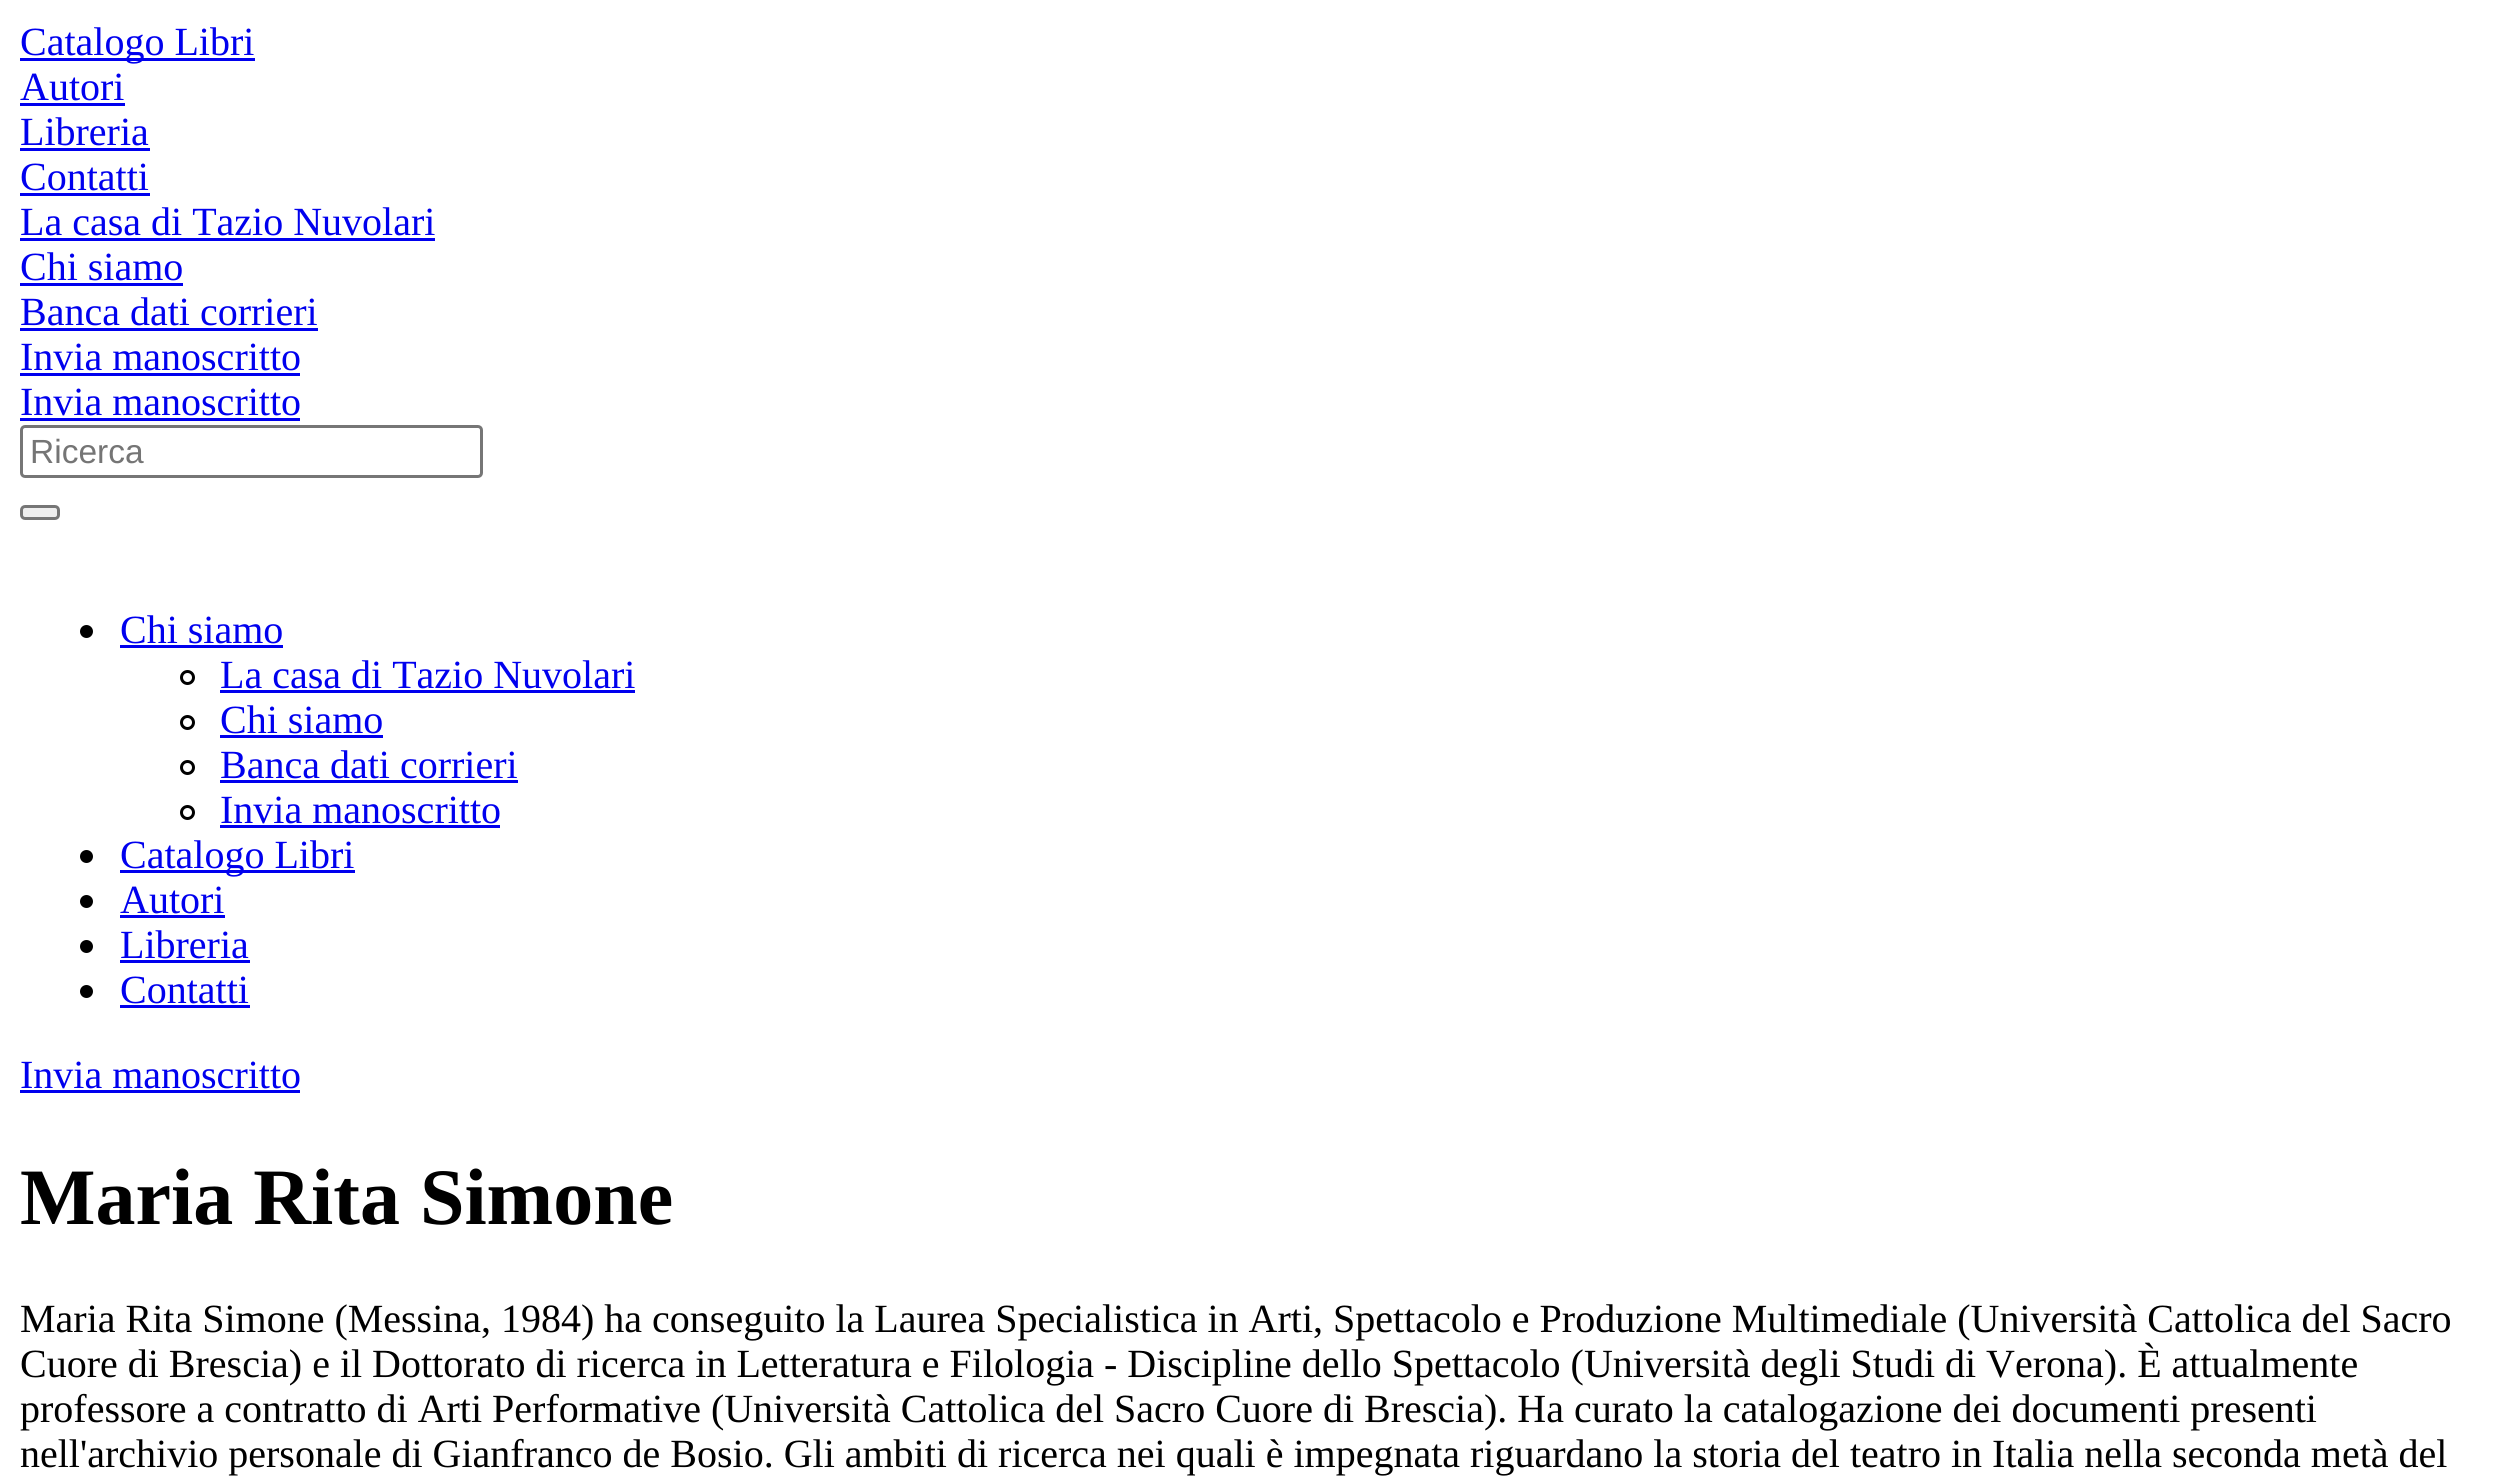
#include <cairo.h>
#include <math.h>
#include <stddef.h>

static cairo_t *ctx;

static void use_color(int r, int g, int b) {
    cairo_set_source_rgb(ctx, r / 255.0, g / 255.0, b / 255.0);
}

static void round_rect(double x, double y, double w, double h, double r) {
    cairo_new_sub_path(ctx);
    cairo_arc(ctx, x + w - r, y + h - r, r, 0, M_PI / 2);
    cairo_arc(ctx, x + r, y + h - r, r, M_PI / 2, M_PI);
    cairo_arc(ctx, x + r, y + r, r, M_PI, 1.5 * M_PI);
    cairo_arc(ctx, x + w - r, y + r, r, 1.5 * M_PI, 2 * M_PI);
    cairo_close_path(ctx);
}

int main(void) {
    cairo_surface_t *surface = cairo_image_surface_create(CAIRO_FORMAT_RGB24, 2498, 1481);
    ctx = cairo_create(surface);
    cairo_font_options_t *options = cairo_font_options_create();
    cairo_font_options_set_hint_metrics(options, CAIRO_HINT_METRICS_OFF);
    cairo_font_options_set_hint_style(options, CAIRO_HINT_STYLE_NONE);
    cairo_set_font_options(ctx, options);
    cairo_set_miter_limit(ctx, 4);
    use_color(255, 255, 255);
    cairo_paint(ctx);
    use_color(0, 0, 238);
    cairo_rectangle(ctx, 20, 58, 235, 3);
    cairo_fill(ctx);
    cairo_select_font_face(ctx, "Liberation Serif", CAIRO_FONT_SLANT_NORMAL, CAIRO_FONT_WEIGHT_NORMAL);
    cairo_set_font_size(ctx, 40);
    cairo_move_to(ctx, 20, 55);
    cairo_show_text(ctx, "Catalogo Libri");
    cairo_move_to(ctx, 20, 100);
    cairo_show_text(ctx, "Autori");
    cairo_rectangle(ctx, 20, 103, 105, 3);
    cairo_fill(ctx);
    cairo_move_to(ctx, 20, 145);
    cairo_show_text(ctx, "Libreria");
    cairo_rectangle(ctx, 20, 148, 130, 3);
    cairo_fill(ctx);
    cairo_move_to(ctx, 20, 190);
    cairo_show_text(ctx, "Contatti");
    cairo_rectangle(ctx, 20, 193, 130, 3);
    cairo_fill(ctx);
    cairo_move_to(ctx, 20, 235);
    cairo_show_text(ctx, "La casa di Tazio Nuvolari");
    cairo_rectangle(ctx, 20, 238, 415, 3);
    cairo_fill(ctx);
    cairo_move_to(ctx, 20, 280);
    cairo_show_text(ctx, "Chi siamo");
    cairo_rectangle(ctx, 20, 283, 163, 3);
    cairo_fill(ctx);
    cairo_move_to(ctx, 20, 325);
    cairo_show_text(ctx, "Banca dati corrieri");
    cairo_rectangle(ctx, 20, 328, 298, 3);
    cairo_fill(ctx);
    cairo_move_to(ctx, 20, 370);
    cairo_show_text(ctx, "Invia manoscritto");
    cairo_rectangle(ctx, 20, 373, 280, 3);
    cairo_fill(ctx);
    cairo_move_to(ctx, 20, 415);
    cairo_show_text(ctx, "Invia manoscritto");
    cairo_rectangle(ctx, 20, 418, 280, 3);
    cairo_fill(ctx);
    round_rect(21.5, 426.5, 460, 50, 3.5);
    use_color(118, 118, 118);
    cairo_set_line_width(ctx, 3);
    cairo_stroke(ctx);
    cairo_select_font_face(ctx, "Liberation Sans", CAIRO_FONT_SLANT_NORMAL, CAIRO_FONT_WEIGHT_NORMAL);
    cairo_set_font_size(ctx, 33.5);
    use_color(117, 117, 117);
    cairo_move_to(ctx, 30, 463);
    cairo_show_text(ctx, "Ricerca");
    use_color(239, 239, 239);
    round_rect(21.5, 506.5, 37, 12, 3.5);
    cairo_fill_preserve(ctx);
    use_color(118, 118, 118);
    cairo_stroke(ctx);
    use_color(0, 0, 0);
    cairo_arc(ctx, 86.5, 631.5, 6.5, 0, 2 * M_PI);
    cairo_fill(ctx);
    cairo_select_font_face(ctx, "Liberation Serif", CAIRO_FONT_SLANT_NORMAL, CAIRO_FONT_WEIGHT_NORMAL);
    cairo_set_font_size(ctx, 40);
    use_color(0, 0, 238);
    cairo_move_to(ctx, 120, 643);
    cairo_show_text(ctx, "Chi siamo");
    cairo_rectangle(ctx, 120, 645, 163, 3);
    cairo_fill(ctx);
    cairo_arc(ctx, 187.5, 677.5, 6, 0, 2 * M_PI);
    use_color(0, 0, 0);
    cairo_stroke(ctx);
    use_color(0, 0, 238);
    cairo_move_to(ctx, 220, 688);
    cairo_show_text(ctx, "La casa di Tazio Nuvolari");
    cairo_rectangle(ctx, 220, 690, 415, 3);
    cairo_fill(ctx);
    cairo_arc(ctx, 187.5, 722.5, 6, 0, 2 * M_PI);
    use_color(0, 0, 0);
    cairo_stroke(ctx);
    use_color(0, 0, 238);
    cairo_move_to(ctx, 220, 733);
    cairo_show_text(ctx, "Chi siamo");
    cairo_rectangle(ctx, 220, 735, 163, 3);
    cairo_fill(ctx);
    cairo_arc(ctx, 187.5, 767.5, 6, 0, 2 * M_PI);
    use_color(0, 0, 0);
    cairo_stroke(ctx);
    use_color(0, 0, 238);
    cairo_move_to(ctx, 220, 778);
    cairo_show_text(ctx, "Banca dati corrieri");
    cairo_rectangle(ctx, 220, 780, 298, 3);
    cairo_fill(ctx);
    cairo_arc(ctx, 187.5, 812.5, 6, 0, 2 * M_PI);
    use_color(0, 0, 0);
    cairo_stroke(ctx);
    use_color(0, 0, 238);
    cairo_move_to(ctx, 220, 823);
    cairo_show_text(ctx, "Invia manoscritto");
    cairo_rectangle(ctx, 220, 825, 280, 3);
    cairo_fill(ctx);
    use_color(0, 0, 0);
    cairo_arc(ctx, 86.5, 856.5, 6.5, 0, 2 * M_PI);
    cairo_fill(ctx);
    use_color(0, 0, 238);
    cairo_rectangle(ctx, 120, 870, 235, 3);
    cairo_fill(ctx);
    cairo_move_to(ctx, 120, 868);
    cairo_show_text(ctx, "Catalogo Libri");
    use_color(0, 0, 0);
    cairo_new_path(ctx);
    cairo_arc(ctx, 86.5, 901.5, 6.5, 0, 2 * M_PI);
    cairo_fill(ctx);
    use_color(0, 0, 238);
    cairo_move_to(ctx, 120, 913);
    cairo_show_text(ctx, "Autori");
    cairo_rectangle(ctx, 120, 915, 105, 3);
    cairo_fill(ctx);
    use_color(0, 0, 0);
    cairo_arc(ctx, 86.5, 946.5, 6.5, 0, 2 * M_PI);
    cairo_fill(ctx);
    use_color(0, 0, 238);
    cairo_move_to(ctx, 120, 958);
    cairo_show_text(ctx, "Libreria");
    cairo_rectangle(ctx, 120, 960, 130, 3);
    cairo_fill(ctx);
    use_color(0, 0, 0);
    cairo_arc(ctx, 86.5, 991.5, 6.5, 0, 2 * M_PI);
    cairo_fill(ctx);
    use_color(0, 0, 238);
    cairo_move_to(ctx, 120, 1003);
    cairo_show_text(ctx, "Contatti");
    cairo_rectangle(ctx, 120, 1005, 130, 3);
    cairo_fill(ctx);
    cairo_move_to(ctx, 20, 1088);
    cairo_show_text(ctx, "Invia manoscritto");
    cairo_rectangle(ctx, 20, 1090, 280, 3);
    cairo_fill(ctx);
    cairo_select_font_face(ctx, "Liberation Serif", CAIRO_FONT_SLANT_NORMAL, CAIRO_FONT_WEIGHT_BOLD);
    cairo_set_font_size(ctx, 80);
    use_color(0, 0, 0);
    cairo_move_to(ctx, 20, 1224);
    cairo_show_text(ctx, "Maria Rita Simone");
    cairo_select_font_face(ctx, "Liberation Serif", CAIRO_FONT_SLANT_NORMAL, CAIRO_FONT_WEIGHT_NORMAL);
    cairo_set_font_size(ctx, 40);
    cairo_move_to(ctx, 20, 1332);
    cairo_show_text(ctx, "Maria Rita Simone (Messina, 1984) ha conseguito la Laurea Specialistica in Arti, Spettacolo e Produzione Multimediale (Università Cattolica del Sacro");
    cairo_move_to(ctx, 20, 1377);
    cairo_show_text(ctx, "Cuore di Brescia) e il Dottorato di ricerca in Letteratura e Filologia - Discipline dello Spettacolo (Università degli Studi di Verona). È attualmente");
    cairo_move_to(ctx, 20, 1422);
    cairo_show_text(ctx, "professore a contratto di Arti Performative (Università Cattolica del Sacro Cuore di Brescia). Ha curato la catalogazione dei documenti presenti");
    cairo_move_to(ctx, 20, 1467);
    cairo_show_text(ctx, "nell'archivio personale di Gianfranco de Bosio. Gli ambiti di ricerca nei quali è impegnata riguardano la storia del teatro in Italia nella seconda metà del");
    cairo_surface_write_to_png(surface, "result.png");
    cairo_font_options_destroy(options);
    cairo_destroy(ctx);
    cairo_surface_destroy(surface);
    return 0;
}
